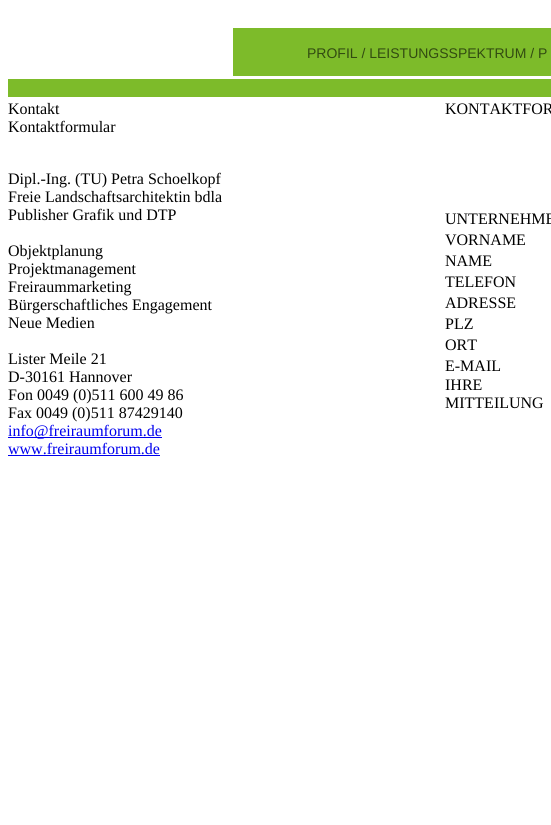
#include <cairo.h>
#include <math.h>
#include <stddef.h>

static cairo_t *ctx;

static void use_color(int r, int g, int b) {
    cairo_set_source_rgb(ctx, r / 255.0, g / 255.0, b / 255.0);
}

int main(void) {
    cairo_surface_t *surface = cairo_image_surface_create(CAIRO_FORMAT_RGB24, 551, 825);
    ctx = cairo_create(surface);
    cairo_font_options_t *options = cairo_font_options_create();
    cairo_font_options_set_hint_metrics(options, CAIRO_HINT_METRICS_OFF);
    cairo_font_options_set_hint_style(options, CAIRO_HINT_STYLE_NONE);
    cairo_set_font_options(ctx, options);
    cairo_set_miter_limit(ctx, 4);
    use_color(255, 255, 255);
    cairo_paint(ctx);
    use_color(125, 187, 42);
    cairo_rectangle(ctx, 233, 28, 318, 48);
    cairo_fill(ctx);
    cairo_select_font_face(ctx, "Liberation Sans", CAIRO_FONT_SLANT_NORMAL, CAIRO_FONT_WEIGHT_NORMAL);
    cairo_set_font_size(ctx, 14);
    use_color(50, 75, 17);
    cairo_move_to(ctx, 307, 58);
    cairo_show_text(ctx, "PROFIL / LEISTUNGSSPEKTRUM / P");
    use_color(125, 187, 42);
    cairo_rectangle(ctx, 8, 79, 543, 18);
    cairo_fill(ctx);
    cairo_select_font_face(ctx, "Liberation Serif", CAIRO_FONT_SLANT_NORMAL, CAIRO_FONT_WEIGHT_NORMAL);
    cairo_set_font_size(ctx, 16);
    use_color(0, 0, 0);
    cairo_move_to(ctx, 8, 114);
    cairo_show_text(ctx, "Kontakt");
    cairo_move_to(ctx, 8, 132);
    cairo_show_text(ctx, "Kontaktformular");
    cairo_move_to(ctx, 8, 184);
    cairo_show_text(ctx, "Dipl.-Ing. (TU) Petra Schoelkopf");
    cairo_move_to(ctx, 8, 202);
    cairo_show_text(ctx, "Freie Landschaftsarchitektin bdla");
    cairo_move_to(ctx, 8, 220);
    cairo_show_text(ctx, "Publisher Grafik und DTP");
    cairo_move_to(ctx, 8, 256);
    cairo_show_text(ctx, "Objektplanung");
    cairo_move_to(ctx, 8, 274);
    cairo_show_text(ctx, "Projektmanagement");
    cairo_move_to(ctx, 8, 292);
    cairo_show_text(ctx, "Freiraummarketing");
    cairo_move_to(ctx, 8, 310);
    cairo_show_text(ctx, "Bürgerschaftliches Engagement");
    cairo_move_to(ctx, 8, 328);
    cairo_show_text(ctx, "Neue Medien");
    cairo_move_to(ctx, 8, 364);
    cairo_show_text(ctx, "Lister Meile 21");
    cairo_move_to(ctx, 8, 382);
    cairo_show_text(ctx, "D-30161 Hannover");
    cairo_move_to(ctx, 8, 400);
    cairo_show_text(ctx, "Fon 0049 (0)511 600 49 86");
    cairo_move_to(ctx, 8, 418);
    cairo_show_text(ctx, "Fax 0049 (0)511 87429140");
    use_color(0, 0, 238);
    cairo_rectangle(ctx, 8, 437, 154, 1);
    cairo_fill(ctx);
    cairo_move_to(ctx, 8, 436);
    cairo_show_text(ctx, "info@freiraumforum.de");
    cairo_move_to(ctx, 8, 454);
    cairo_show_text(ctx, "www.freiraumforum.de");
    cairo_rectangle(ctx, 8, 455, 152, 1);
    cairo_fill(ctx);
    use_color(0, 0, 0);
    cairo_move_to(ctx, 445, 114);
    cairo_show_text(ctx, "KONTAKTFOR");
    cairo_move_to(ctx, 445, 224);
    cairo_show_text(ctx, "UNTERNEHME");
    cairo_move_to(ctx, 445, 245);
    cairo_show_text(ctx, "VORNAME");
    cairo_move_to(ctx, 445, 266);
    cairo_show_text(ctx, "NAME");
    cairo_move_to(ctx, 445, 287);
    cairo_show_text(ctx, "TELEFON");
    cairo_move_to(ctx, 445, 308);
    cairo_show_text(ctx, "ADRESSE");
    cairo_move_to(ctx, 445, 329);
    cairo_show_text(ctx, "PLZ");
    cairo_move_to(ctx, 445, 350);
    cairo_show_text(ctx, "ORT");
    cairo_move_to(ctx, 445, 371);
    cairo_show_text(ctx, "E-MAIL");
    cairo_move_to(ctx, 445, 390);
    cairo_show_text(ctx, "IHRE");
    cairo_move_to(ctx, 445, 408);
    cairo_show_text(ctx, "MITTEILUNG");
    cairo_surface_write_to_png(surface, "result.png");
    cairo_font_options_destroy(options);
    cairo_destroy(ctx);
    cairo_surface_destroy(surface);
    return 0;
}
